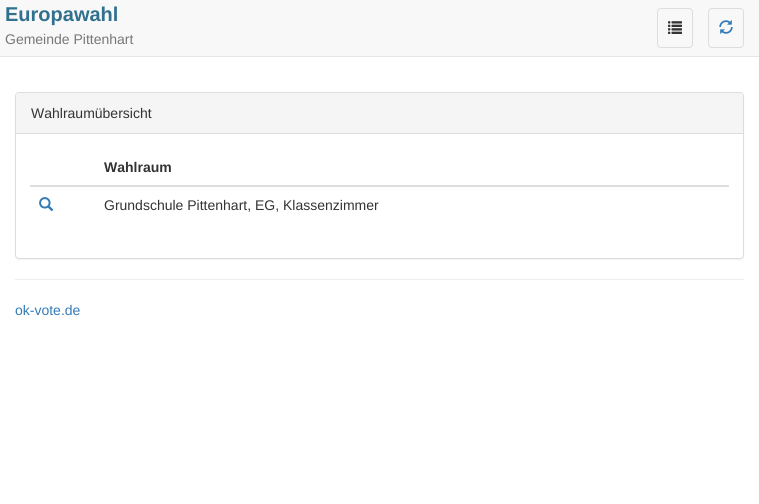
#include <cairo.h>
#include <math.h>
#include <stddef.h>

static cairo_t *ctx;

static void use_color(int r, int g, int b) {
    cairo_set_source_rgb(ctx, r / 255.0, g / 255.0, b / 255.0);
}

static void round_rect(double x, double y, double w, double h, double r) {
    cairo_new_sub_path(ctx);
    cairo_arc(ctx, x + w - r, y + h - r, r, 0, M_PI / 2);
    cairo_arc(ctx, x + r, y + h - r, r, M_PI / 2, M_PI);
    cairo_arc(ctx, x + r, y + r, r, M_PI, 1.5 * M_PI);
    cairo_arc(ctx, x + w - r, y + r, r, 1.5 * M_PI, 2 * M_PI);
    cairo_close_path(ctx);
}

static void shadow(double x, double y, double w, double h, double r, double blur, double alpha) {
    cairo_push_group_with_content(ctx, CAIRO_CONTENT_ALPHA);
    cairo_set_operator(ctx, CAIRO_OPERATOR_SOURCE);
    for (int i = 15; i >= -15 && fmin(w, h) + blur * i / 3 > 0; i -= 2) {
        double e = blur * i / 6;
        cairo_set_source_rgba(ctx, 0, 0, 0, alpha * erfc((i - 1) / 8.5) / 2);
        round_rect(x - e, y - e, w + 2 * e, h + 2 * e, fmax(0, fmin(r + e + blur * .6, fmin(w, h) / 2 + e)));
        cairo_fill(ctx);
    }
    cairo_pattern_t *soft = cairo_pop_group(ctx);
    cairo_mask(ctx, soft);
    cairo_pattern_destroy(soft);
}

static void picture(const char *path, double x, double y, double w, double h) {
    cairo_surface_t *image = cairo_image_surface_create_from_png(path);
    cairo_save(ctx);
    cairo_set_source_surface(ctx, image, x, y);
    cairo_rectangle(ctx, x, y, w, h);
    cairo_fill(ctx);
    cairo_restore(ctx);
    cairo_surface_destroy(image);
}

int main(void) {
    cairo_surface_t *surface = cairo_image_surface_create(CAIRO_FORMAT_RGB24, 759, 504);
    ctx = cairo_create(surface);
    cairo_font_options_t *options = cairo_font_options_create();
    cairo_font_options_set_hint_metrics(options, CAIRO_HINT_METRICS_OFF);
    cairo_font_options_set_hint_style(options, CAIRO_HINT_STYLE_NONE);
    cairo_set_font_options(ctx, options);
    cairo_set_miter_limit(ctx, 4);
    use_color(255, 255, 255);
    cairo_paint(ctx);
    use_color(248, 248, 248);
    cairo_rectangle(ctx, 0, 0, 759, 56);
    cairo_fill(ctx);
    use_color(231, 231, 231);
    cairo_rectangle(ctx, 0, 56, 759, 1);
    cairo_fill(ctx);
    cairo_select_font_face(ctx, "Liberation Sans", CAIRO_FONT_SLANT_NORMAL, CAIRO_FONT_WEIGHT_BOLD);
    cairo_set_font_size(ctx, 20);
    use_color(49, 112, 143);
    cairo_move_to(ctx, 5, 21);
    cairo_show_text(ctx, "Europawahl");
    cairo_select_font_face(ctx, "Liberation Sans", CAIRO_FONT_SLANT_NORMAL, CAIRO_FONT_WEIGHT_NORMAL);
    cairo_set_font_size(ctx, 14);
    use_color(119, 119, 119);
    cairo_move_to(ctx, 5, 44);
    cairo_show_text(ctx, "Gemeinde Pittenhart");
    round_rect(657.5, 8.5, 35, 39, 3.5);
    use_color(221, 221, 221);
    cairo_set_line_width(ctx, 1);
    cairo_stroke(ctx);
    picture("img1.png", 668, 21, 14, 13);
    round_rect(708.5, 8.5, 35, 39, 3.5);
    cairo_stroke(ctx);
    picture("img2.png", 719, 20, 14, 14);
    use_color(0, 0, 0);
    shadow(15, 93, 729, 167, 4, 0.5, 0.05);
    use_color(255, 255, 255);
    round_rect(15.5, 92.5, 728, 166, 3.5);
    cairo_fill_preserve(ctx);
    use_color(221, 221, 221);
    cairo_stroke(ctx);
    use_color(245, 245, 245);
    cairo_new_path(ctx);
    cairo_move_to(ctx, 19, 93);
    cairo_line_to(ctx, 740, 93);
    cairo_curve_to(ctx, 741.5, 93, 743, 94.5, 743, 96);
    cairo_line_to(ctx, 743, 134);
    cairo_line_to(ctx, 16, 134);
    cairo_line_to(ctx, 16, 96);
    cairo_curve_to(ctx, 16, 94.5, 17.5, 93, 19, 93);
    cairo_close_path(ctx);
    cairo_fill(ctx);
    use_color(221, 221, 221);
    cairo_rectangle(ctx, 16, 133, 727, 1);
    cairo_fill(ctx);
    use_color(51, 51, 51);
    cairo_move_to(ctx, 31, 118);
    cairo_show_text(ctx, "Wahlraumübersicht");
    use_color(221, 221, 221);
    cairo_rectangle(ctx, 30, 185, 699, 2);
    cairo_fill(ctx);
    cairo_select_font_face(ctx, "Liberation Sans", CAIRO_FONT_SLANT_NORMAL, CAIRO_FONT_WEIGHT_BOLD);
    use_color(51, 51, 51);
    cairo_move_to(ctx, 104, 172);
    cairo_show_text(ctx, "Wahlraum");
    picture("img3.png", 39, 197, 15, 14);
    cairo_select_font_face(ctx, "Liberation Sans", CAIRO_FONT_SLANT_NORMAL, CAIRO_FONT_WEIGHT_NORMAL);
    cairo_move_to(ctx, 104, 210);
    cairo_show_text(ctx, "Grundschule Pittenhart, EG, Klassenzimmer");
    use_color(238, 238, 238);
    cairo_rectangle(ctx, 15, 279, 729, 1);
    cairo_fill(ctx);
    use_color(51, 122, 183);
    cairo_move_to(ctx, 15, 315);
    cairo_show_text(ctx, "ok-vote.de");
    cairo_surface_write_to_png(surface, "result.png");
    cairo_font_options_destroy(options);
    cairo_destroy(ctx);
    cairo_surface_destroy(surface);
    return 0;
}
